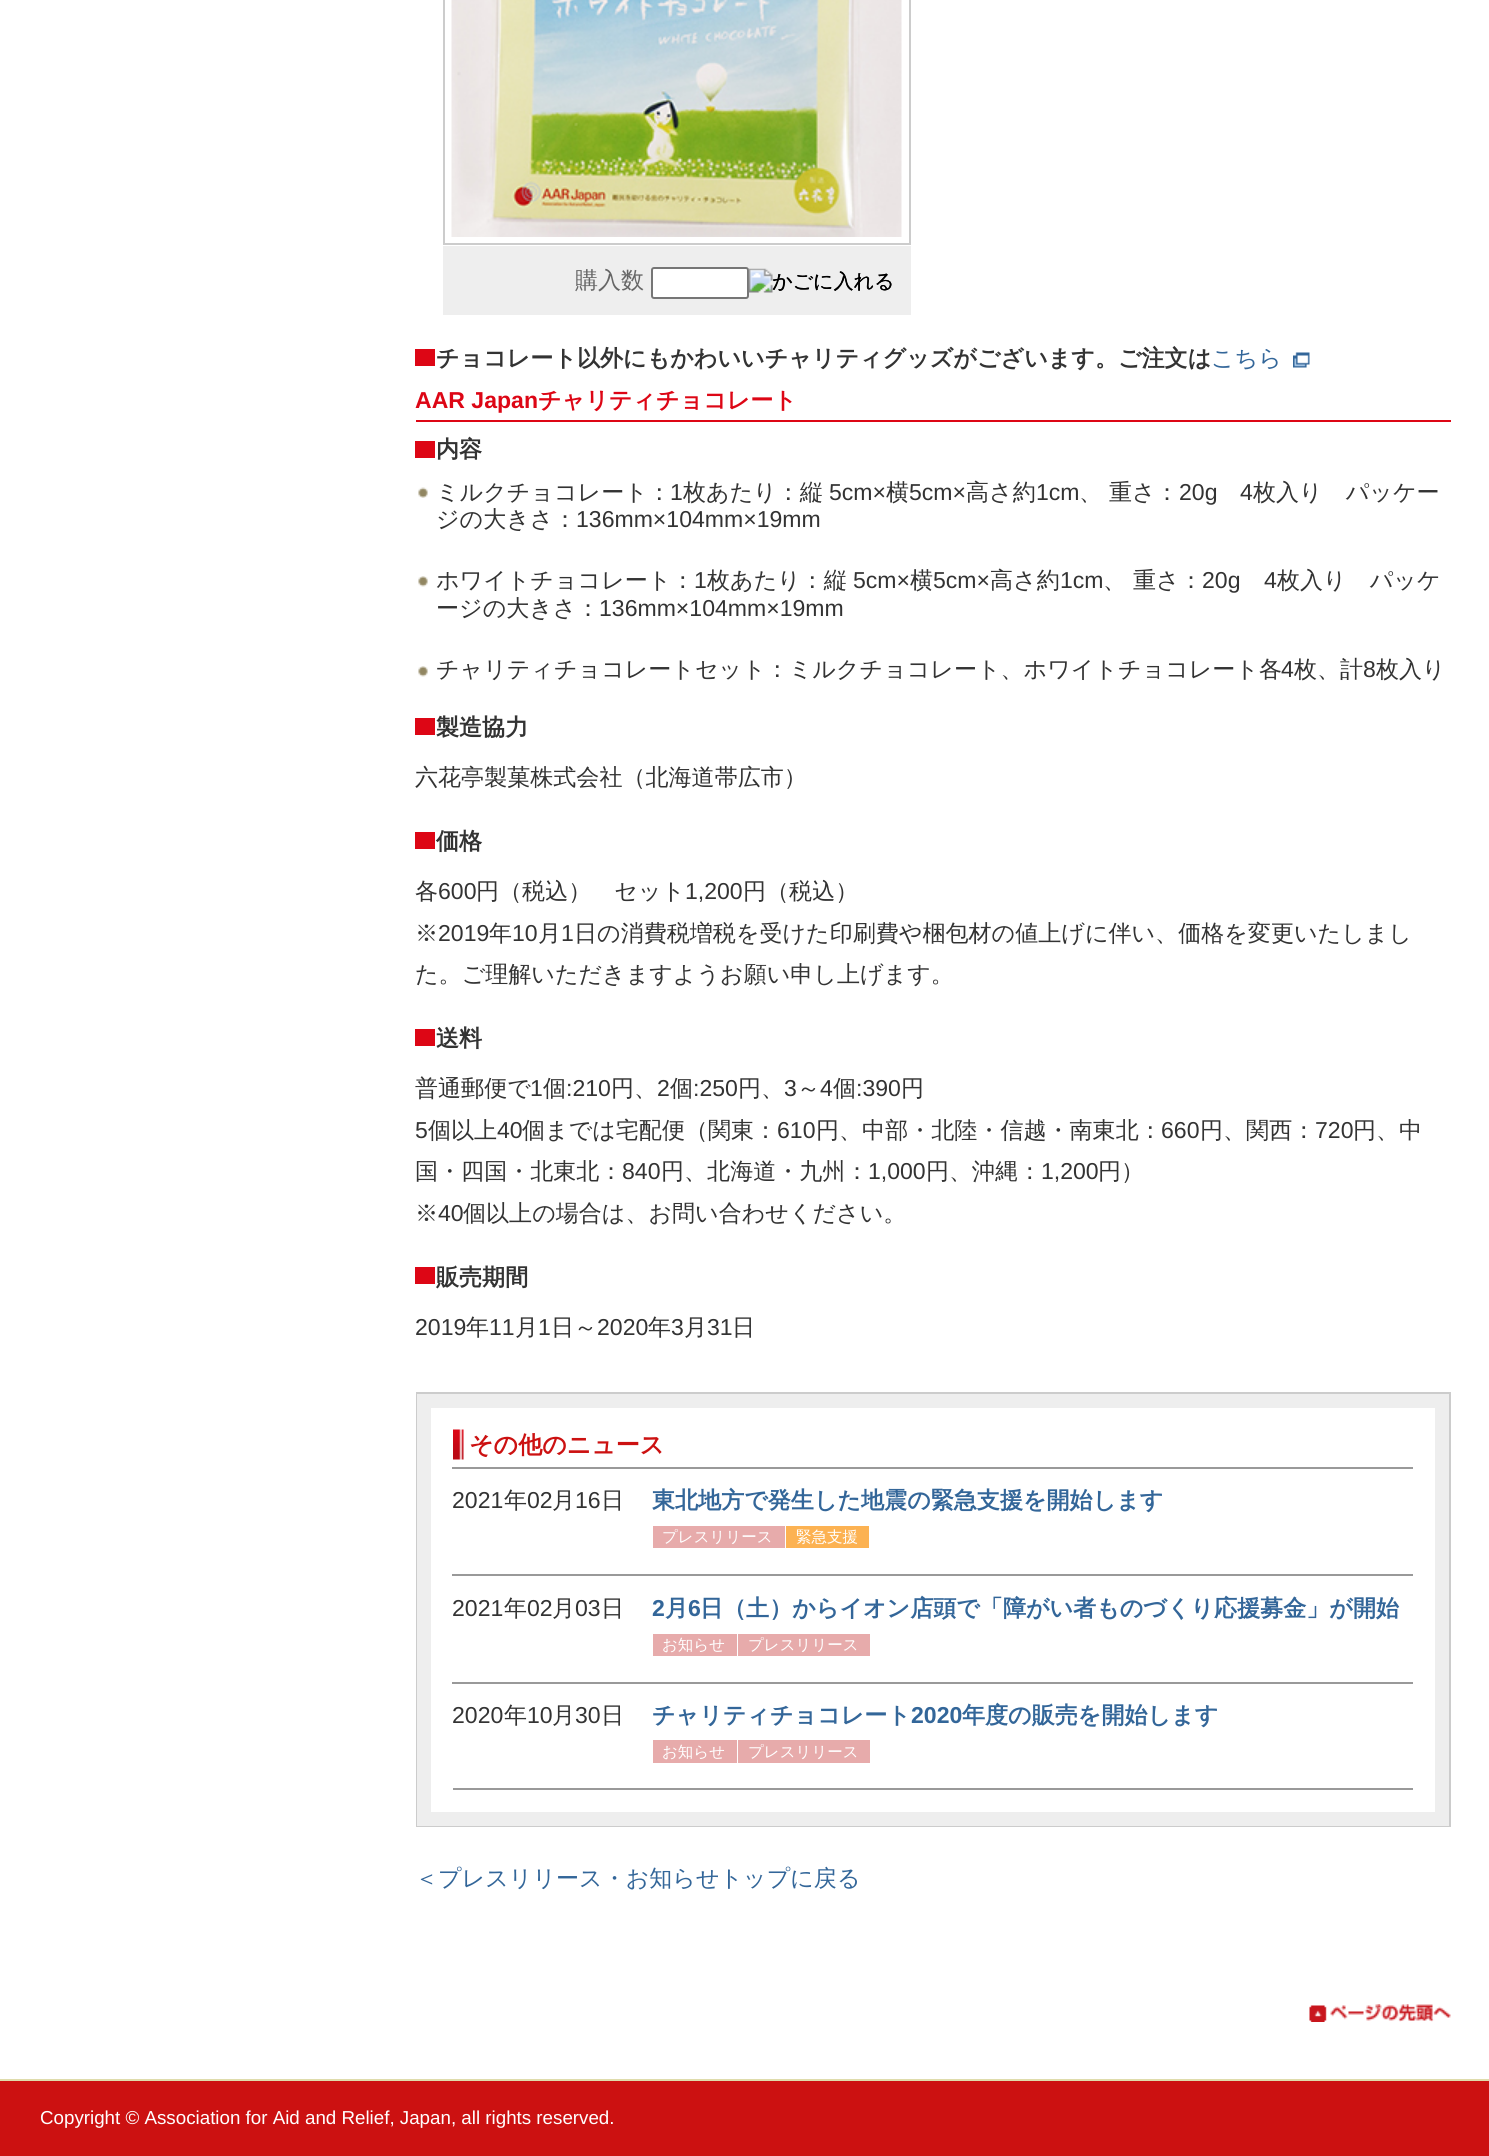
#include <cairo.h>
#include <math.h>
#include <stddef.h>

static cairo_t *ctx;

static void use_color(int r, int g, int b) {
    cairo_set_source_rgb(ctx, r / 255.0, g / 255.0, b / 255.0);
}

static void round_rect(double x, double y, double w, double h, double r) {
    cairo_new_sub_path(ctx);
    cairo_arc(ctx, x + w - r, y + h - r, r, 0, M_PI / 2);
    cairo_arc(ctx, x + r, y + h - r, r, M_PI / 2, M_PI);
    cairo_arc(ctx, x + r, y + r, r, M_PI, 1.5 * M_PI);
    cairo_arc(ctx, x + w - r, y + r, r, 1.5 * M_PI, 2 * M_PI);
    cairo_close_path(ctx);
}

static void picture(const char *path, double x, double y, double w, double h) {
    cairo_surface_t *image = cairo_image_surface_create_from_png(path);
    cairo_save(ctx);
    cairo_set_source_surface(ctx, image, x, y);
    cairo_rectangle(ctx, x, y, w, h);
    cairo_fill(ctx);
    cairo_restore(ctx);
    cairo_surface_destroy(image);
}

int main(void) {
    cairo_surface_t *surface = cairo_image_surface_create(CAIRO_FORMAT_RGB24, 1489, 2156);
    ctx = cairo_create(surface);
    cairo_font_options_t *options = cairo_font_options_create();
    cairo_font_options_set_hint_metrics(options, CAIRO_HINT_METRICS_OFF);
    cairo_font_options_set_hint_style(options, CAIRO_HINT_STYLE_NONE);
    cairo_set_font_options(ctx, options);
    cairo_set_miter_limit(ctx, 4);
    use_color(255, 255, 255);
    cairo_paint(ctx);
    cairo_rectangle(ctx, 444, -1, 466, 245);
    use_color(204, 204, 204);
    cairo_stroke(ctx);
    picture("img1.png", 451, 0, 451, 237);
    use_color(238, 238, 238);
    cairo_rectangle(ctx, 443, 246, 468, 69);
    cairo_fill(ctx);
    cairo_select_font_face(ctx, "WenQuanYi Zen Hei Medium", CAIRO_FONT_SLANT_NORMAL, CAIRO_FONT_WEIGHT_NORMAL);
    cairo_set_font_size(ctx, 23.05);
    use_color(102, 102, 102);
    cairo_move_to(ctx, 575, 288);
    cairo_show_text(ctx, "購入数");
    use_color(255, 255, 255);
    round_rect(652, 268, 96, 30, 2);
    cairo_fill_preserve(ctx);
    use_color(118, 118, 118);
    cairo_stroke(ctx);
    picture("img2.png", 748, 268, 144, 25);
    cairo_set_font_size(ctx, 20);
    use_color(0, 0, 0);
    cairo_move_to(ctx, 772, 288);
    cairo_show_text(ctx, "かごに入れる");
    use_color(221, 6, 21);
    cairo_rectangle(ctx, 415, 349, 20, 17);
    cairo_fill(ctx);
    cairo_select_font_face(ctx, "WenQuanYi Zen Hei", CAIRO_FONT_SLANT_NORMAL, CAIRO_FONT_WEIGHT_BOLD);
    cairo_set_font_size(ctx, 23.05);
    use_color(51, 51, 51);
    cairo_move_to(ctx, 436, 366);
    cairo_show_text(ctx, "チョコレート以外にもかわいいチャリティグッズがございます。ご注文は");
    cairo_select_font_face(ctx, "WenQuanYi Zen Hei Medium", CAIRO_FONT_SLANT_NORMAL, CAIRO_FONT_WEIGHT_NORMAL);
    use_color(51, 102, 153);
    cairo_move_to(ctx, 1211, 366);
    cairo_show_text(ctx, "こちら");
    picture("img3.png", 1293, 352, 17, 16);
    use_color(221, 6, 21);
    cairo_rectangle(ctx, 416, 420, 1035, 2);
    cairo_fill(ctx);
    cairo_select_font_face(ctx, "Liberation Sans", CAIRO_FONT_SLANT_NORMAL, CAIRO_FONT_WEIGHT_BOLD);
    cairo_move_to(ctx, 415, 408);
    cairo_show_text(ctx, "AAR Japan");
    cairo_select_font_face(ctx, "WenQuanYi Zen Hei", CAIRO_FONT_SLANT_NORMAL, CAIRO_FONT_WEIGHT_BOLD);
    cairo_move_to(ctx, 538, 408);
    cairo_show_text(ctx, "チャリティチョコレート");
    cairo_rectangle(ctx, 415, 441, 20, 17);
    cairo_fill(ctx);
    use_color(51, 51, 51);
    cairo_move_to(ctx, 436, 457);
    cairo_show_text(ctx, "内容");
    picture("img4.png", 418, 487, 10, 11);
    cairo_select_font_face(ctx, "WenQuanYi Zen Hei Medium", CAIRO_FONT_SLANT_NORMAL, CAIRO_FONT_WEIGHT_NORMAL);
    cairo_move_to(ctx, 436, 500);
    cairo_show_text(ctx, "ミルクチョコレート：");
    cairo_select_font_face(ctx, "Liberation Sans", CAIRO_FONT_SLANT_NORMAL, CAIRO_FONT_WEIGHT_NORMAL);
    cairo_move_to(ctx, 670, 500);
    cairo_show_text(ctx, "1");
    cairo_select_font_face(ctx, "WenQuanYi Zen Hei Medium", CAIRO_FONT_SLANT_NORMAL, CAIRO_FONT_WEIGHT_NORMAL);
    cairo_move_to(ctx, 683, 500);
    cairo_show_text(ctx, "枚あたり：縦");
    cairo_select_font_face(ctx, "Liberation Sans", CAIRO_FONT_SLANT_NORMAL, CAIRO_FONT_WEIGHT_NORMAL);
    cairo_move_to(ctx, 829, 500);
    cairo_show_text(ctx, "5cm×");
    cairo_select_font_face(ctx, "WenQuanYi Zen Hei Medium", CAIRO_FONT_SLANT_NORMAL, CAIRO_FONT_WEIGHT_NORMAL);
    cairo_move_to(ctx, 886, 500);
    cairo_show_text(ctx, "横");
    cairo_select_font_face(ctx, "Liberation Sans", CAIRO_FONT_SLANT_NORMAL, CAIRO_FONT_WEIGHT_NORMAL);
    cairo_move_to(ctx, 909, 500);
    cairo_show_text(ctx, "5cm×");
    cairo_select_font_face(ctx, "WenQuanYi Zen Hei Medium", CAIRO_FONT_SLANT_NORMAL, CAIRO_FONT_WEIGHT_NORMAL);
    cairo_move_to(ctx, 966, 500);
    cairo_show_text(ctx, "高さ約");
    cairo_select_font_face(ctx, "Liberation Sans", CAIRO_FONT_SLANT_NORMAL, CAIRO_FONT_WEIGHT_NORMAL);
    cairo_move_to(ctx, 1036, 500);
    cairo_show_text(ctx, "1cm");
    cairo_select_font_face(ctx, "WenQuanYi Zen Hei Medium", CAIRO_FONT_SLANT_NORMAL, CAIRO_FONT_WEIGHT_NORMAL);
    cairo_move_to(ctx, 1079, 500);
    cairo_show_text(ctx, "、 重さ：");
    cairo_select_font_face(ctx, "Liberation Sans", CAIRO_FONT_SLANT_NORMAL, CAIRO_FONT_WEIGHT_NORMAL);
    cairo_move_to(ctx, 1179, 500);
    cairo_show_text(ctx, "20g");
    cairo_move_to(ctx, 1240, 500);
    cairo_show_text(ctx, "4");
    cairo_select_font_face(ctx, "WenQuanYi Zen Hei Medium", CAIRO_FONT_SLANT_NORMAL, CAIRO_FONT_WEIGHT_NORMAL);
    cairo_move_to(ctx, 1253, 500);
    cairo_show_text(ctx, "枚入り　パッケー");
    cairo_move_to(ctx, 436, 527);
    cairo_show_text(ctx, "ジの大きさ：");
    cairo_select_font_face(ctx, "Liberation Sans", CAIRO_FONT_SLANT_NORMAL, CAIRO_FONT_WEIGHT_NORMAL);
    cairo_move_to(ctx, 576, 527);
    cairo_show_text(ctx, "136mm×104mm×19mm");
    picture("img5.png", 418, 576, 10, 11);
    cairo_select_font_face(ctx, "WenQuanYi Zen Hei Medium", CAIRO_FONT_SLANT_NORMAL, CAIRO_FONT_WEIGHT_NORMAL);
    cairo_move_to(ctx, 436, 588);
    cairo_show_text(ctx, "ホワイトチョコレート：");
    cairo_select_font_face(ctx, "Liberation Sans", CAIRO_FONT_SLANT_NORMAL, CAIRO_FONT_WEIGHT_NORMAL);
    cairo_move_to(ctx, 694, 588);
    cairo_show_text(ctx, "1");
    cairo_select_font_face(ctx, "WenQuanYi Zen Hei Medium", CAIRO_FONT_SLANT_NORMAL, CAIRO_FONT_WEIGHT_NORMAL);
    cairo_move_to(ctx, 707, 588);
    cairo_show_text(ctx, "枚あたり：縦");
    cairo_select_font_face(ctx, "Liberation Sans", CAIRO_FONT_SLANT_NORMAL, CAIRO_FONT_WEIGHT_NORMAL);
    cairo_move_to(ctx, 853, 588);
    cairo_show_text(ctx, "5cm×");
    cairo_select_font_face(ctx, "WenQuanYi Zen Hei Medium", CAIRO_FONT_SLANT_NORMAL, CAIRO_FONT_WEIGHT_NORMAL);
    cairo_move_to(ctx, 910, 588);
    cairo_show_text(ctx, "横");
    cairo_select_font_face(ctx, "Liberation Sans", CAIRO_FONT_SLANT_NORMAL, CAIRO_FONT_WEIGHT_NORMAL);
    cairo_move_to(ctx, 933, 588);
    cairo_show_text(ctx, "5cm×");
    cairo_select_font_face(ctx, "WenQuanYi Zen Hei Medium", CAIRO_FONT_SLANT_NORMAL, CAIRO_FONT_WEIGHT_NORMAL);
    cairo_move_to(ctx, 990, 588);
    cairo_show_text(ctx, "高さ約");
    cairo_select_font_face(ctx, "Liberation Sans", CAIRO_FONT_SLANT_NORMAL, CAIRO_FONT_WEIGHT_NORMAL);
    cairo_move_to(ctx, 1060, 588);
    cairo_show_text(ctx, "1cm");
    cairo_select_font_face(ctx, "WenQuanYi Zen Hei Medium", CAIRO_FONT_SLANT_NORMAL, CAIRO_FONT_WEIGHT_NORMAL);
    cairo_move_to(ctx, 1103, 588);
    cairo_show_text(ctx, "、 重さ：");
    cairo_select_font_face(ctx, "Liberation Sans", CAIRO_FONT_SLANT_NORMAL, CAIRO_FONT_WEIGHT_NORMAL);
    cairo_move_to(ctx, 1202, 588);
    cairo_show_text(ctx, "20g");
    cairo_move_to(ctx, 1264, 588);
    cairo_show_text(ctx, "4");
    cairo_select_font_face(ctx, "WenQuanYi Zen Hei Medium", CAIRO_FONT_SLANT_NORMAL, CAIRO_FONT_WEIGHT_NORMAL);
    cairo_move_to(ctx, 1277, 588);
    cairo_show_text(ctx, "枚入り　パッケ");
    cairo_move_to(ctx, 436, 616);
    cairo_show_text(ctx, "ージの大きさ：");
    cairo_select_font_face(ctx, "Liberation Sans", CAIRO_FONT_SLANT_NORMAL, CAIRO_FONT_WEIGHT_NORMAL);
    cairo_move_to(ctx, 599, 616);
    cairo_show_text(ctx, "136mm×104mm×19mm");
    picture("img5.png", 418, 666, 10, 11);
    cairo_select_font_face(ctx, "WenQuanYi Zen Hei Medium", CAIRO_FONT_SLANT_NORMAL, CAIRO_FONT_WEIGHT_NORMAL);
    cairo_move_to(ctx, 436, 677);
    cairo_show_text(ctx, "チャリティチョコレートセット：ミルクチョコレート、ホワイトチョコレート各");
    cairo_select_font_face(ctx, "Liberation Sans", CAIRO_FONT_SLANT_NORMAL, CAIRO_FONT_WEIGHT_NORMAL);
    cairo_move_to(ctx, 1281, 677);
    cairo_show_text(ctx, "4");
    cairo_select_font_face(ctx, "WenQuanYi Zen Hei Medium", CAIRO_FONT_SLANT_NORMAL, CAIRO_FONT_WEIGHT_NORMAL);
    cairo_move_to(ctx, 1294, 677);
    cairo_show_text(ctx, "枚、計");
    cairo_select_font_face(ctx, "Liberation Sans", CAIRO_FONT_SLANT_NORMAL, CAIRO_FONT_WEIGHT_NORMAL);
    cairo_move_to(ctx, 1363, 677);
    cairo_show_text(ctx, "8");
    cairo_select_font_face(ctx, "WenQuanYi Zen Hei Medium", CAIRO_FONT_SLANT_NORMAL, CAIRO_FONT_WEIGHT_NORMAL);
    cairo_move_to(ctx, 1376, 677);
    cairo_show_text(ctx, "枚入り");
    use_color(221, 6, 21);
    cairo_rectangle(ctx, 415, 718, 20, 17);
    cairo_fill(ctx);
    cairo_select_font_face(ctx, "WenQuanYi Zen Hei", CAIRO_FONT_SLANT_NORMAL, CAIRO_FONT_WEIGHT_BOLD);
    use_color(51, 51, 51);
    cairo_move_to(ctx, 436, 735);
    cairo_show_text(ctx, "製造協力");
    cairo_select_font_face(ctx, "WenQuanYi Zen Hei Medium", CAIRO_FONT_SLANT_NORMAL, CAIRO_FONT_WEIGHT_NORMAL);
    cairo_move_to(ctx, 415, 785);
    cairo_show_text(ctx, "六花亭製菓株式会社（北海道帯広市）");
    use_color(221, 6, 21);
    cairo_rectangle(ctx, 415, 832, 20, 17);
    cairo_fill(ctx);
    cairo_select_font_face(ctx, "WenQuanYi Zen Hei", CAIRO_FONT_SLANT_NORMAL, CAIRO_FONT_WEIGHT_BOLD);
    use_color(51, 51, 51);
    cairo_move_to(ctx, 436, 849);
    cairo_show_text(ctx, "価格");
    cairo_select_font_face(ctx, "WenQuanYi Zen Hei Medium", CAIRO_FONT_SLANT_NORMAL, CAIRO_FONT_WEIGHT_NORMAL);
    cairo_move_to(ctx, 415, 899);
    cairo_show_text(ctx, "各");
    cairo_select_font_face(ctx, "Liberation Sans", CAIRO_FONT_SLANT_NORMAL, CAIRO_FONT_WEIGHT_NORMAL);
    cairo_move_to(ctx, 438, 899);
    cairo_show_text(ctx, "600");
    cairo_select_font_face(ctx, "WenQuanYi Zen Hei Medium", CAIRO_FONT_SLANT_NORMAL, CAIRO_FONT_WEIGHT_NORMAL);
    cairo_move_to(ctx, 476, 899);
    cairo_show_text(ctx, "円（税込）　セット");
    cairo_select_font_face(ctx, "Liberation Sans", CAIRO_FONT_SLANT_NORMAL, CAIRO_FONT_WEIGHT_NORMAL);
    cairo_move_to(ctx, 685, 899);
    cairo_show_text(ctx, "1,200");
    cairo_select_font_face(ctx, "WenQuanYi Zen Hei Medium", CAIRO_FONT_SLANT_NORMAL, CAIRO_FONT_WEIGHT_NORMAL);
    cairo_move_to(ctx, 743, 899);
    cairo_show_text(ctx, "円（税込）");
    cairo_move_to(ctx, 415, 941);
    cairo_show_text(ctx, "※");
    cairo_select_font_face(ctx, "Liberation Sans", CAIRO_FONT_SLANT_NORMAL, CAIRO_FONT_WEIGHT_NORMAL);
    cairo_move_to(ctx, 438, 941);
    cairo_show_text(ctx, "2019");
    cairo_select_font_face(ctx, "WenQuanYi Zen Hei Medium", CAIRO_FONT_SLANT_NORMAL, CAIRO_FONT_WEIGHT_NORMAL);
    cairo_move_to(ctx, 489, 941);
    cairo_show_text(ctx, "年");
    cairo_select_font_face(ctx, "Liberation Sans", CAIRO_FONT_SLANT_NORMAL, CAIRO_FONT_WEIGHT_NORMAL);
    cairo_move_to(ctx, 512, 941);
    cairo_show_text(ctx, "10");
    cairo_select_font_face(ctx, "WenQuanYi Zen Hei Medium", CAIRO_FONT_SLANT_NORMAL, CAIRO_FONT_WEIGHT_NORMAL);
    cairo_move_to(ctx, 538, 941);
    cairo_show_text(ctx, "月");
    cairo_select_font_face(ctx, "Liberation Sans", CAIRO_FONT_SLANT_NORMAL, CAIRO_FONT_WEIGHT_NORMAL);
    cairo_move_to(ctx, 561, 941);
    cairo_show_text(ctx, "1");
    cairo_select_font_face(ctx, "WenQuanYi Zen Hei Medium", CAIRO_FONT_SLANT_NORMAL, CAIRO_FONT_WEIGHT_NORMAL);
    cairo_move_to(ctx, 574, 941);
    cairo_show_text(ctx, "日の消費税増税を受けた印刷費や梱包材の値上げに伴い、価格を変更いたしまし");
    cairo_move_to(ctx, 415, 982);
    cairo_show_text(ctx, "た。ご理解いただきますようお願い申し上げます。");
    use_color(221, 6, 21);
    cairo_rectangle(ctx, 415, 1029, 20, 17);
    cairo_fill(ctx);
    cairo_select_font_face(ctx, "WenQuanYi Zen Hei", CAIRO_FONT_SLANT_NORMAL, CAIRO_FONT_WEIGHT_BOLD);
    use_color(51, 51, 51);
    cairo_move_to(ctx, 436, 1046);
    cairo_show_text(ctx, "送料");
    cairo_select_font_face(ctx, "WenQuanYi Zen Hei Medium", CAIRO_FONT_SLANT_NORMAL, CAIRO_FONT_WEIGHT_NORMAL);
    cairo_move_to(ctx, 415, 1096);
    cairo_show_text(ctx, "普通郵便で");
    cairo_select_font_face(ctx, "Liberation Sans", CAIRO_FONT_SLANT_NORMAL, CAIRO_FONT_WEIGHT_NORMAL);
    cairo_move_to(ctx, 530, 1096);
    cairo_show_text(ctx, "1");
    cairo_select_font_face(ctx, "WenQuanYi Zen Hei Medium", CAIRO_FONT_SLANT_NORMAL, CAIRO_FONT_WEIGHT_NORMAL);
    cairo_move_to(ctx, 543, 1096);
    cairo_show_text(ctx, "個");
    cairo_select_font_face(ctx, "Liberation Sans", CAIRO_FONT_SLANT_NORMAL, CAIRO_FONT_WEIGHT_NORMAL);
    cairo_move_to(ctx, 566, 1096);
    cairo_show_text(ctx, ":210");
    cairo_select_font_face(ctx, "WenQuanYi Zen Hei Medium", CAIRO_FONT_SLANT_NORMAL, CAIRO_FONT_WEIGHT_NORMAL);
    cairo_move_to(ctx, 611, 1096);
    cairo_show_text(ctx, "円、");
    cairo_select_font_face(ctx, "Liberation Sans", CAIRO_FONT_SLANT_NORMAL, CAIRO_FONT_WEIGHT_NORMAL);
    cairo_move_to(ctx, 657, 1096);
    cairo_show_text(ctx, "2");
    cairo_select_font_face(ctx, "WenQuanYi Zen Hei Medium", CAIRO_FONT_SLANT_NORMAL, CAIRO_FONT_WEIGHT_NORMAL);
    cairo_move_to(ctx, 670, 1096);
    cairo_show_text(ctx, "個");
    cairo_select_font_face(ctx, "Liberation Sans", CAIRO_FONT_SLANT_NORMAL, CAIRO_FONT_WEIGHT_NORMAL);
    cairo_move_to(ctx, 693, 1096);
    cairo_show_text(ctx, ":250");
    cairo_select_font_face(ctx, "WenQuanYi Zen Hei Medium", CAIRO_FONT_SLANT_NORMAL, CAIRO_FONT_WEIGHT_NORMAL);
    cairo_move_to(ctx, 738, 1096);
    cairo_show_text(ctx, "円、");
    cairo_select_font_face(ctx, "Liberation Sans", CAIRO_FONT_SLANT_NORMAL, CAIRO_FONT_WEIGHT_NORMAL);
    cairo_move_to(ctx, 784, 1096);
    cairo_show_text(ctx, "3");
    cairo_select_font_face(ctx, "WenQuanYi Zen Hei Medium", CAIRO_FONT_SLANT_NORMAL, CAIRO_FONT_WEIGHT_NORMAL);
    cairo_move_to(ctx, 797, 1096);
    cairo_show_text(ctx, "～");
    cairo_select_font_face(ctx, "Liberation Sans", CAIRO_FONT_SLANT_NORMAL, CAIRO_FONT_WEIGHT_NORMAL);
    cairo_move_to(ctx, 820, 1096);
    cairo_show_text(ctx, "4");
    cairo_select_font_face(ctx, "WenQuanYi Zen Hei Medium", CAIRO_FONT_SLANT_NORMAL, CAIRO_FONT_WEIGHT_NORMAL);
    cairo_move_to(ctx, 833, 1096);
    cairo_show_text(ctx, "個");
    cairo_select_font_face(ctx, "Liberation Sans", CAIRO_FONT_SLANT_NORMAL, CAIRO_FONT_WEIGHT_NORMAL);
    cairo_move_to(ctx, 856, 1096);
    cairo_show_text(ctx, ":390");
    cairo_select_font_face(ctx, "WenQuanYi Zen Hei Medium", CAIRO_FONT_SLANT_NORMAL, CAIRO_FONT_WEIGHT_NORMAL);
    cairo_move_to(ctx, 901, 1096);
    cairo_show_text(ctx, "円");
    cairo_select_font_face(ctx, "Liberation Sans", CAIRO_FONT_SLANT_NORMAL, CAIRO_FONT_WEIGHT_NORMAL);
    cairo_move_to(ctx, 415, 1138);
    cairo_show_text(ctx, "5");
    cairo_select_font_face(ctx, "WenQuanYi Zen Hei Medium", CAIRO_FONT_SLANT_NORMAL, CAIRO_FONT_WEIGHT_NORMAL);
    cairo_move_to(ctx, 428, 1138);
    cairo_show_text(ctx, "個以上");
    cairo_select_font_face(ctx, "Liberation Sans", CAIRO_FONT_SLANT_NORMAL, CAIRO_FONT_WEIGHT_NORMAL);
    cairo_move_to(ctx, 497, 1138);
    cairo_show_text(ctx, "40");
    cairo_select_font_face(ctx, "WenQuanYi Zen Hei Medium", CAIRO_FONT_SLANT_NORMAL, CAIRO_FONT_WEIGHT_NORMAL);
    cairo_move_to(ctx, 522, 1138);
    cairo_show_text(ctx, "個までは宅配便（関東：");
    cairo_select_font_face(ctx, "Liberation Sans", CAIRO_FONT_SLANT_NORMAL, CAIRO_FONT_WEIGHT_NORMAL);
    cairo_move_to(ctx, 777, 1138);
    cairo_show_text(ctx, "610");
    cairo_select_font_face(ctx, "WenQuanYi Zen Hei Medium", CAIRO_FONT_SLANT_NORMAL, CAIRO_FONT_WEIGHT_NORMAL);
    cairo_move_to(ctx, 816, 1138);
    cairo_show_text(ctx, "円、中部・北陸・信越・南東北：");
    cairo_select_font_face(ctx, "Liberation Sans", CAIRO_FONT_SLANT_NORMAL, CAIRO_FONT_WEIGHT_NORMAL);
    cairo_move_to(ctx, 1161, 1138);
    cairo_show_text(ctx, "660");
    cairo_select_font_face(ctx, "WenQuanYi Zen Hei Medium", CAIRO_FONT_SLANT_NORMAL, CAIRO_FONT_WEIGHT_NORMAL);
    cairo_move_to(ctx, 1200, 1138);
    cairo_show_text(ctx, "円、関西：");
    cairo_select_font_face(ctx, "Liberation Sans", CAIRO_FONT_SLANT_NORMAL, CAIRO_FONT_WEIGHT_NORMAL);
    cairo_move_to(ctx, 1315, 1138);
    cairo_show_text(ctx, "720");
    cairo_select_font_face(ctx, "WenQuanYi Zen Hei Medium", CAIRO_FONT_SLANT_NORMAL, CAIRO_FONT_WEIGHT_NORMAL);
    cairo_move_to(ctx, 1353, 1138);
    cairo_show_text(ctx, "円、中");
    cairo_move_to(ctx, 415, 1179);
    cairo_show_text(ctx, "国・四国・北東北：");
    cairo_select_font_face(ctx, "Liberation Sans", CAIRO_FONT_SLANT_NORMAL, CAIRO_FONT_WEIGHT_NORMAL);
    cairo_move_to(ctx, 622, 1179);
    cairo_show_text(ctx, "840");
    cairo_select_font_face(ctx, "WenQuanYi Zen Hei Medium", CAIRO_FONT_SLANT_NORMAL, CAIRO_FONT_WEIGHT_NORMAL);
    cairo_move_to(ctx, 661, 1179);
    cairo_show_text(ctx, "円、北海道・九州：");
    cairo_select_font_face(ctx, "Liberation Sans", CAIRO_FONT_SLANT_NORMAL, CAIRO_FONT_WEIGHT_NORMAL);
    cairo_move_to(ctx, 868, 1179);
    cairo_show_text(ctx, "1,000");
    cairo_select_font_face(ctx, "WenQuanYi Zen Hei Medium", CAIRO_FONT_SLANT_NORMAL, CAIRO_FONT_WEIGHT_NORMAL);
    cairo_move_to(ctx, 926, 1179);
    cairo_show_text(ctx, "円、沖縄：");
    cairo_select_font_face(ctx, "Liberation Sans", CAIRO_FONT_SLANT_NORMAL, CAIRO_FONT_WEIGHT_NORMAL);
    cairo_move_to(ctx, 1041, 1179);
    cairo_show_text(ctx, "1,200");
    cairo_select_font_face(ctx, "WenQuanYi Zen Hei Medium", CAIRO_FONT_SLANT_NORMAL, CAIRO_FONT_WEIGHT_NORMAL);
    cairo_move_to(ctx, 1098, 1179);
    cairo_show_text(ctx, "円）");
    cairo_move_to(ctx, 415, 1221);
    cairo_show_text(ctx, "※");
    cairo_select_font_face(ctx, "Liberation Sans", CAIRO_FONT_SLANT_NORMAL, CAIRO_FONT_WEIGHT_NORMAL);
    cairo_move_to(ctx, 438, 1221);
    cairo_show_text(ctx, "40");
    cairo_select_font_face(ctx, "WenQuanYi Zen Hei Medium", CAIRO_FONT_SLANT_NORMAL, CAIRO_FONT_WEIGHT_NORMAL);
    cairo_move_to(ctx, 463, 1221);
    cairo_show_text(ctx, "個以上の場合は、お問い合わせください。");
    use_color(221, 6, 21);
    cairo_rectangle(ctx, 415, 1267, 20, 17);
    cairo_fill(ctx);
    cairo_select_font_face(ctx, "WenQuanYi Zen Hei", CAIRO_FONT_SLANT_NORMAL, CAIRO_FONT_WEIGHT_BOLD);
    use_color(51, 51, 51);
    cairo_move_to(ctx, 436, 1285);
    cairo_show_text(ctx, "販売期間");
    cairo_select_font_face(ctx, "Liberation Sans", CAIRO_FONT_SLANT_NORMAL, CAIRO_FONT_WEIGHT_NORMAL);
    cairo_move_to(ctx, 415, 1335);
    cairo_show_text(ctx, "2019");
    cairo_select_font_face(ctx, "WenQuanYi Zen Hei Medium", CAIRO_FONT_SLANT_NORMAL, CAIRO_FONT_WEIGHT_NORMAL);
    cairo_move_to(ctx, 466, 1335);
    cairo_show_text(ctx, "年");
    cairo_select_font_face(ctx, "Liberation Sans", CAIRO_FONT_SLANT_NORMAL, CAIRO_FONT_WEIGHT_NORMAL);
    cairo_move_to(ctx, 489, 1335);
    cairo_show_text(ctx, "11");
    cairo_select_font_face(ctx, "WenQuanYi Zen Hei Medium", CAIRO_FONT_SLANT_NORMAL, CAIRO_FONT_WEIGHT_NORMAL);
    cairo_move_to(ctx, 515, 1335);
    cairo_show_text(ctx, "月");
    cairo_select_font_face(ctx, "Liberation Sans", CAIRO_FONT_SLANT_NORMAL, CAIRO_FONT_WEIGHT_NORMAL);
    cairo_move_to(ctx, 538, 1335);
    cairo_show_text(ctx, "1");
    cairo_select_font_face(ctx, "WenQuanYi Zen Hei Medium", CAIRO_FONT_SLANT_NORMAL, CAIRO_FONT_WEIGHT_NORMAL);
    cairo_move_to(ctx, 551, 1335);
    cairo_show_text(ctx, "日～");
    cairo_select_font_face(ctx, "Liberation Sans", CAIRO_FONT_SLANT_NORMAL, CAIRO_FONT_WEIGHT_NORMAL);
    cairo_move_to(ctx, 597, 1335);
    cairo_show_text(ctx, "2020");
    cairo_select_font_face(ctx, "WenQuanYi Zen Hei Medium", CAIRO_FONT_SLANT_NORMAL, CAIRO_FONT_WEIGHT_NORMAL);
    cairo_move_to(ctx, 648, 1335);
    cairo_show_text(ctx, "年");
    cairo_select_font_face(ctx, "Liberation Sans", CAIRO_FONT_SLANT_NORMAL, CAIRO_FONT_WEIGHT_NORMAL);
    cairo_move_to(ctx, 671, 1335);
    cairo_show_text(ctx, "3");
    cairo_select_font_face(ctx, "WenQuanYi Zen Hei Medium", CAIRO_FONT_SLANT_NORMAL, CAIRO_FONT_WEIGHT_NORMAL);
    cairo_move_to(ctx, 684, 1335);
    cairo_show_text(ctx, "月");
    cairo_select_font_face(ctx, "Liberation Sans", CAIRO_FONT_SLANT_NORMAL, CAIRO_FONT_WEIGHT_NORMAL);
    cairo_move_to(ctx, 707, 1335);
    cairo_show_text(ctx, "31");
    cairo_select_font_face(ctx, "WenQuanYi Zen Hei Medium", CAIRO_FONT_SLANT_NORMAL, CAIRO_FONT_WEIGHT_NORMAL);
    cairo_move_to(ctx, 732, 1335);
    cairo_show_text(ctx, "日");
    cairo_rectangle(ctx, 417, 1393, 1033, 433);
    use_color(204, 204, 204);
    cairo_stroke(ctx);
    cairo_rectangle(ctx, 424, 1401, 1018, 418);
    use_color(238, 238, 238);
    cairo_set_line_width(ctx, 14);
    cairo_stroke(ctx);
    picture("img6.png", 453, 1429, 11, 31);
    cairo_select_font_face(ctx, "WenQuanYi Zen Hei", CAIRO_FONT_SLANT_NORMAL, CAIRO_FONT_WEIGHT_BOLD);
    cairo_set_font_size(ctx, 24);
    use_color(204, 17, 17);
    cairo_move_to(ctx, 469, 1453);
    cairo_show_text(ctx, "その他のニュース");
    use_color(153, 153, 153);
    cairo_rectangle(ctx, 453, 1788, 960, 2);
    cairo_fill(ctx);
    cairo_select_font_face(ctx, "Liberation Sans", CAIRO_FONT_SLANT_NORMAL, CAIRO_FONT_WEIGHT_NORMAL);
    cairo_set_font_size(ctx, 23.05);
    use_color(51, 51, 51);
    cairo_move_to(ctx, 452, 1508);
    cairo_show_text(ctx, "2021");
    cairo_select_font_face(ctx, "WenQuanYi Zen Hei Medium", CAIRO_FONT_SLANT_NORMAL, CAIRO_FONT_WEIGHT_NORMAL);
    cairo_move_to(ctx, 504, 1508);
    cairo_show_text(ctx, "年");
    cairo_select_font_face(ctx, "Liberation Sans", CAIRO_FONT_SLANT_NORMAL, CAIRO_FONT_WEIGHT_NORMAL);
    cairo_move_to(ctx, 527, 1508);
    cairo_show_text(ctx, "02");
    cairo_select_font_face(ctx, "WenQuanYi Zen Hei Medium", CAIRO_FONT_SLANT_NORMAL, CAIRO_FONT_WEIGHT_NORMAL);
    cairo_move_to(ctx, 552, 1508);
    cairo_show_text(ctx, "月");
    cairo_select_font_face(ctx, "Liberation Sans", CAIRO_FONT_SLANT_NORMAL, CAIRO_FONT_WEIGHT_NORMAL);
    cairo_move_to(ctx, 575, 1508);
    cairo_show_text(ctx, "16");
    cairo_select_font_face(ctx, "WenQuanYi Zen Hei Medium", CAIRO_FONT_SLANT_NORMAL, CAIRO_FONT_WEIGHT_NORMAL);
    cairo_move_to(ctx, 601, 1508);
    cairo_show_text(ctx, "日");
    use_color(153, 153, 153);
    cairo_rectangle(ctx, 452, 1467, 961, 2);
    cairo_fill(ctx);
    cairo_select_font_face(ctx, "WenQuanYi Zen Hei", CAIRO_FONT_SLANT_NORMAL, CAIRO_FONT_WEIGHT_BOLD);
    use_color(51, 102, 153);
    cairo_move_to(ctx, 652, 1508);
    cairo_show_text(ctx, "東北地方で発生した地震の緊急支援を開始します");
    use_color(231, 171, 171);
    cairo_rectangle(ctx, 653, 1526, 132, 22);
    cairo_fill(ctx);
    cairo_select_font_face(ctx, "WenQuanYi Zen Hei Medium", CAIRO_FONT_SLANT_NORMAL, CAIRO_FONT_WEIGHT_NORMAL);
    cairo_set_font_size(ctx, 15.5);
    use_color(255, 255, 255);
    cairo_move_to(ctx, 662, 1542);
    cairo_show_text(ctx, "プレスリリース");
    use_color(252, 178, 82);
    cairo_rectangle(ctx, 786, 1526, 83, 22);
    cairo_fill(ctx);
    use_color(255, 255, 255);
    cairo_move_to(ctx, 796, 1542);
    cairo_show_text(ctx, "緊急支援");
    cairo_select_font_face(ctx, "Liberation Sans", CAIRO_FONT_SLANT_NORMAL, CAIRO_FONT_WEIGHT_NORMAL);
    cairo_set_font_size(ctx, 23.05);
    use_color(51, 51, 51);
    cairo_move_to(ctx, 452, 1616);
    cairo_show_text(ctx, "2021");
    cairo_select_font_face(ctx, "WenQuanYi Zen Hei Medium", CAIRO_FONT_SLANT_NORMAL, CAIRO_FONT_WEIGHT_NORMAL);
    cairo_move_to(ctx, 504, 1616);
    cairo_show_text(ctx, "年");
    cairo_select_font_face(ctx, "Liberation Sans", CAIRO_FONT_SLANT_NORMAL, CAIRO_FONT_WEIGHT_NORMAL);
    cairo_move_to(ctx, 527, 1616);
    cairo_show_text(ctx, "02");
    cairo_select_font_face(ctx, "WenQuanYi Zen Hei Medium", CAIRO_FONT_SLANT_NORMAL, CAIRO_FONT_WEIGHT_NORMAL);
    cairo_move_to(ctx, 552, 1616);
    cairo_show_text(ctx, "月");
    cairo_select_font_face(ctx, "Liberation Sans", CAIRO_FONT_SLANT_NORMAL, CAIRO_FONT_WEIGHT_NORMAL);
    cairo_move_to(ctx, 575, 1616);
    cairo_show_text(ctx, "03");
    cairo_select_font_face(ctx, "WenQuanYi Zen Hei Medium", CAIRO_FONT_SLANT_NORMAL, CAIRO_FONT_WEIGHT_NORMAL);
    cairo_move_to(ctx, 601, 1616);
    cairo_show_text(ctx, "日");
    use_color(153, 153, 153);
    cairo_rectangle(ctx, 452, 1574, 961, 2);
    cairo_fill(ctx);
    cairo_select_font_face(ctx, "Liberation Sans", CAIRO_FONT_SLANT_NORMAL, CAIRO_FONT_WEIGHT_BOLD);
    use_color(51, 102, 153);
    cairo_move_to(ctx, 652, 1616);
    cairo_show_text(ctx, "2");
    cairo_select_font_face(ctx, "WenQuanYi Zen Hei", CAIRO_FONT_SLANT_NORMAL, CAIRO_FONT_WEIGHT_BOLD);
    cairo_move_to(ctx, 665, 1616);
    cairo_show_text(ctx, "月");
    cairo_select_font_face(ctx, "Liberation Sans", CAIRO_FONT_SLANT_NORMAL, CAIRO_FONT_WEIGHT_BOLD);
    cairo_move_to(ctx, 688, 1616);
    cairo_show_text(ctx, "6");
    cairo_select_font_face(ctx, "WenQuanYi Zen Hei", CAIRO_FONT_SLANT_NORMAL, CAIRO_FONT_WEIGHT_BOLD);
    cairo_move_to(ctx, 700, 1616);
    cairo_show_text(ctx, "日（土）からイオン店頭で「障がい者ものづくり応援募金」が開始");
    use_color(231, 171, 171);
    cairo_rectangle(ctx, 653, 1634, 84, 22);
    cairo_fill(ctx);
    cairo_select_font_face(ctx, "WenQuanYi Zen Hei Medium", CAIRO_FONT_SLANT_NORMAL, CAIRO_FONT_WEIGHT_NORMAL);
    cairo_set_font_size(ctx, 15.5);
    use_color(255, 255, 255);
    cairo_move_to(ctx, 662, 1650);
    cairo_show_text(ctx, "お知らせ");
    use_color(231, 171, 171);
    cairo_rectangle(ctx, 738, 1634, 132, 22);
    cairo_fill(ctx);
    use_color(255, 255, 255);
    cairo_move_to(ctx, 748, 1650);
    cairo_show_text(ctx, "プレスリリース");
    cairo_select_font_face(ctx, "Liberation Sans", CAIRO_FONT_SLANT_NORMAL, CAIRO_FONT_WEIGHT_NORMAL);
    cairo_set_font_size(ctx, 23.05);
    use_color(51, 51, 51);
    cairo_move_to(ctx, 452, 1723);
    cairo_show_text(ctx, "2020");
    cairo_select_font_face(ctx, "WenQuanYi Zen Hei Medium", CAIRO_FONT_SLANT_NORMAL, CAIRO_FONT_WEIGHT_NORMAL);
    cairo_move_to(ctx, 504, 1723);
    cairo_show_text(ctx, "年");
    cairo_select_font_face(ctx, "Liberation Sans", CAIRO_FONT_SLANT_NORMAL, CAIRO_FONT_WEIGHT_NORMAL);
    cairo_move_to(ctx, 527, 1723);
    cairo_show_text(ctx, "10");
    cairo_select_font_face(ctx, "WenQuanYi Zen Hei Medium", CAIRO_FONT_SLANT_NORMAL, CAIRO_FONT_WEIGHT_NORMAL);
    cairo_move_to(ctx, 552, 1723);
    cairo_show_text(ctx, "月");
    cairo_select_font_face(ctx, "Liberation Sans", CAIRO_FONT_SLANT_NORMAL, CAIRO_FONT_WEIGHT_NORMAL);
    cairo_move_to(ctx, 575, 1723);
    cairo_show_text(ctx, "30");
    cairo_select_font_face(ctx, "WenQuanYi Zen Hei Medium", CAIRO_FONT_SLANT_NORMAL, CAIRO_FONT_WEIGHT_NORMAL);
    cairo_move_to(ctx, 601, 1723);
    cairo_show_text(ctx, "日");
    use_color(153, 153, 153);
    cairo_rectangle(ctx, 452, 1682, 961, 2);
    cairo_fill(ctx);
    cairo_select_font_face(ctx, "WenQuanYi Zen Hei", CAIRO_FONT_SLANT_NORMAL, CAIRO_FONT_WEIGHT_BOLD);
    use_color(51, 102, 153);
    cairo_move_to(ctx, 652, 1723);
    cairo_show_text(ctx, "チャリティチョコレート");
    cairo_select_font_face(ctx, "Liberation Sans", CAIRO_FONT_SLANT_NORMAL, CAIRO_FONT_WEIGHT_BOLD);
    cairo_move_to(ctx, 911, 1723);
    cairo_show_text(ctx, "2020");
    cairo_select_font_face(ctx, "WenQuanYi Zen Hei", CAIRO_FONT_SLANT_NORMAL, CAIRO_FONT_WEIGHT_BOLD);
    cairo_move_to(ctx, 962, 1723);
    cairo_show_text(ctx, "年度の販売を開始します");
    use_color(231, 171, 171);
    cairo_rectangle(ctx, 653, 1740, 84, 23);
    cairo_fill(ctx);
    cairo_select_font_face(ctx, "WenQuanYi Zen Hei Medium", CAIRO_FONT_SLANT_NORMAL, CAIRO_FONT_WEIGHT_NORMAL);
    cairo_set_font_size(ctx, 15.5);
    use_color(255, 255, 255);
    cairo_move_to(ctx, 662, 1757);
    cairo_show_text(ctx, "お知らせ");
    use_color(231, 171, 171);
    cairo_rectangle(ctx, 738, 1740, 132, 23);
    cairo_fill(ctx);
    use_color(255, 255, 255);
    cairo_move_to(ctx, 748, 1757);
    cairo_show_text(ctx, "プレスリリース");
    cairo_set_font_size(ctx, 23.05);
    use_color(51, 102, 153);
    cairo_move_to(ctx, 415, 1886);
    cairo_show_text(ctx, "＜プレスリリース・お知らせトップに戻る");
    picture("img7.png", 1309, 2004, 142, 18);
    use_color(204, 17, 17);
    cairo_rectangle(ctx, 0, 2081, 1489, 75);
    cairo_fill(ctx);
    use_color(223, 220, 172);
    cairo_rectangle(ctx, 0, 2079, 1489, 2);
    cairo_fill(ctx);
    cairo_select_font_face(ctx, "Liberation Sans", CAIRO_FONT_SLANT_NORMAL, CAIRO_FONT_WEIGHT_NORMAL);
    cairo_set_font_size(ctx, 18.75);
    use_color(255, 255, 255);
    cairo_move_to(ctx, 40, 2124);
    cairo_show_text(ctx, "Copyright © Association for Aid and Relief, Japan, all rights reserved.");
    cairo_surface_write_to_png(surface, "result.png");
    cairo_font_options_destroy(options);
    cairo_destroy(ctx);
    cairo_surface_destroy(surface);
    return 0;
}
